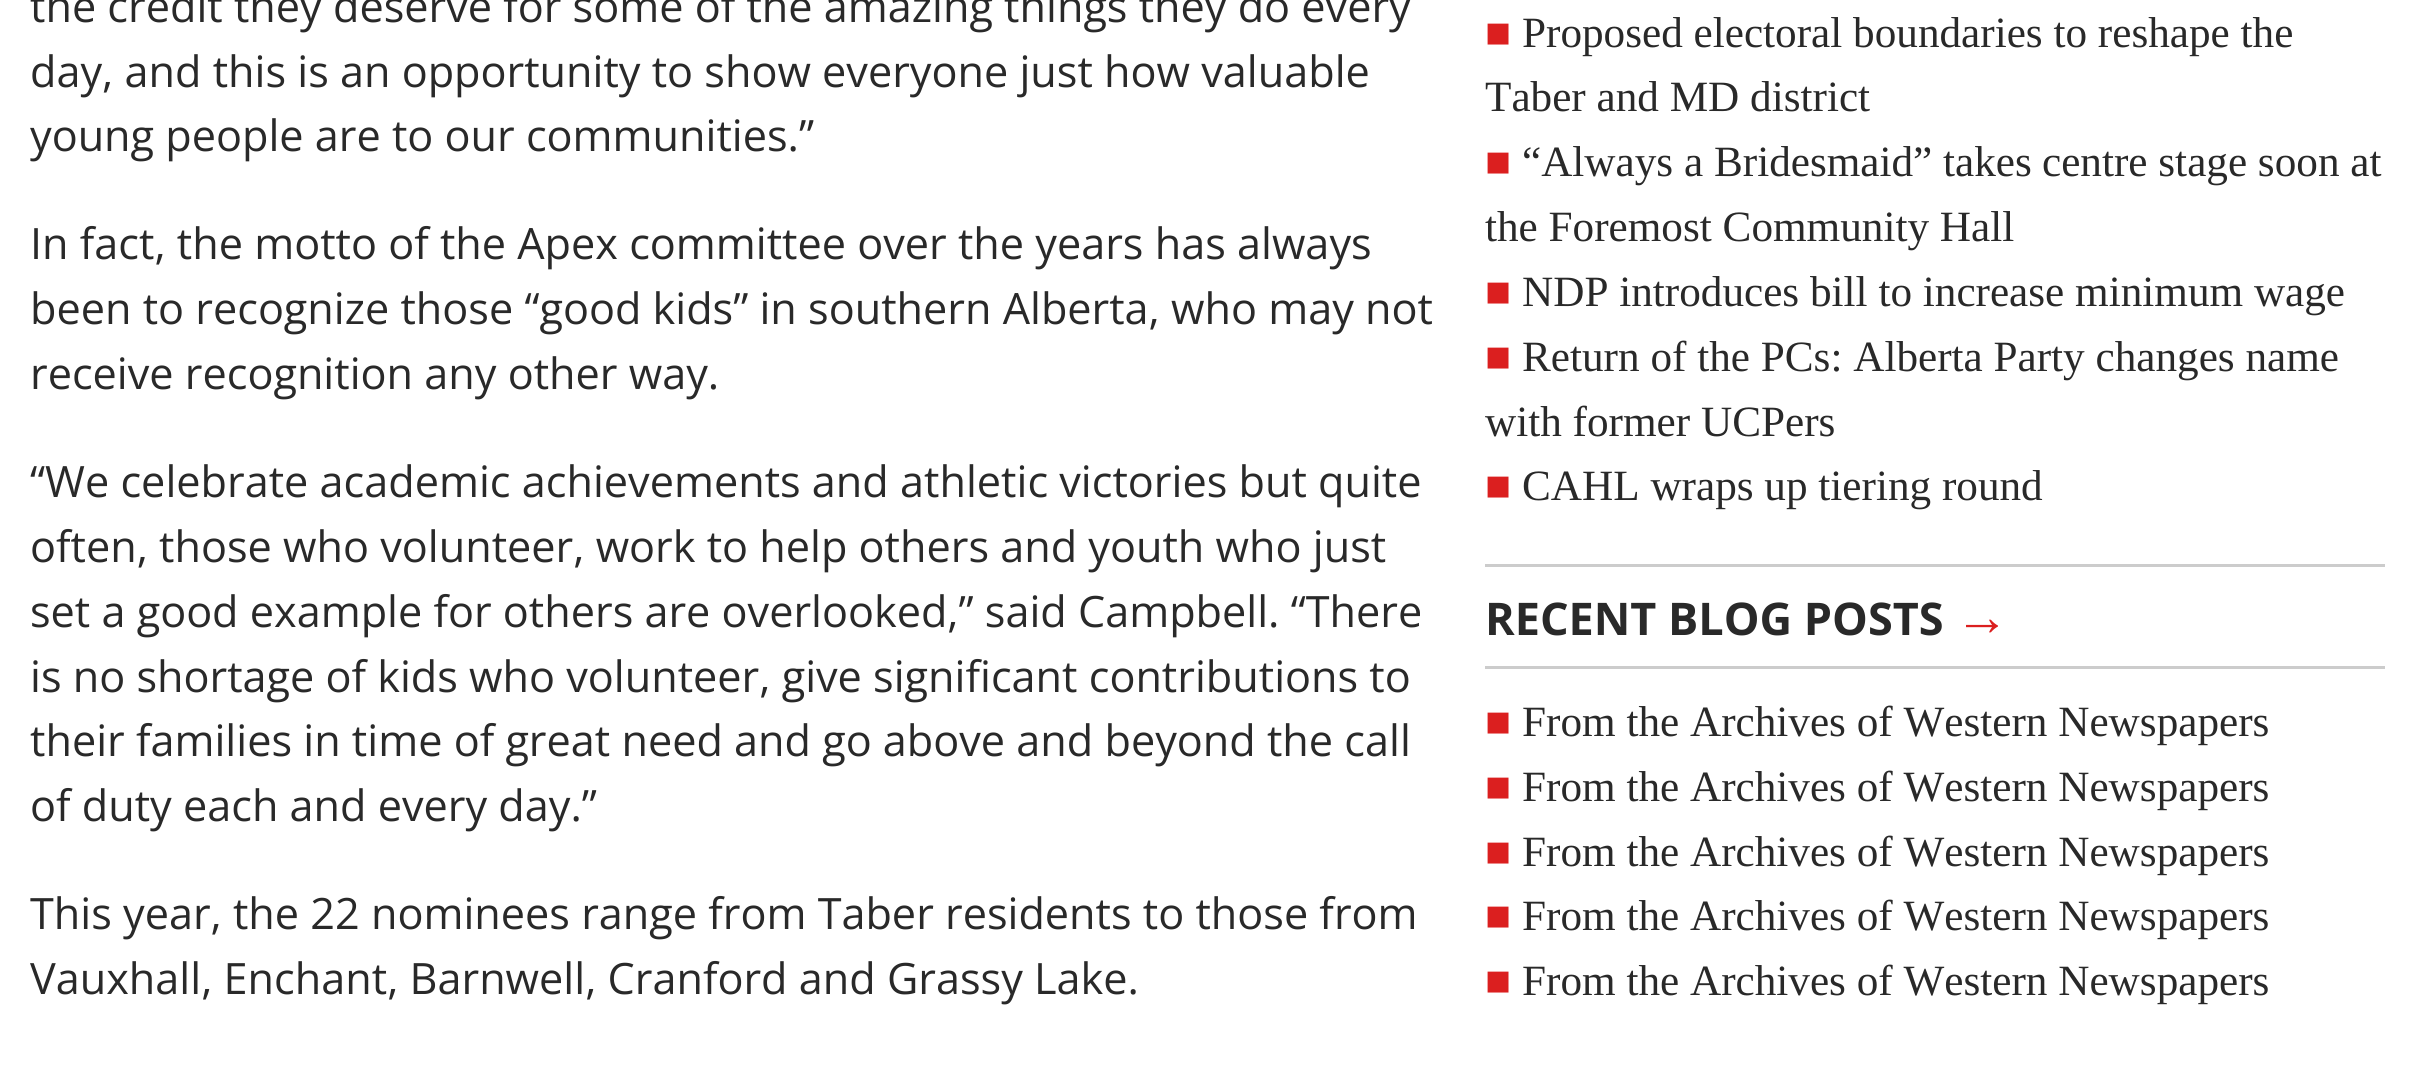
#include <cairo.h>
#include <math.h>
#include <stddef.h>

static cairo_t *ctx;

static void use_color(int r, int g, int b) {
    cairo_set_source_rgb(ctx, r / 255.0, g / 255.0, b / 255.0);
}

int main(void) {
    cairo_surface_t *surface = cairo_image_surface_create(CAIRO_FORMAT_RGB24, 2415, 1081);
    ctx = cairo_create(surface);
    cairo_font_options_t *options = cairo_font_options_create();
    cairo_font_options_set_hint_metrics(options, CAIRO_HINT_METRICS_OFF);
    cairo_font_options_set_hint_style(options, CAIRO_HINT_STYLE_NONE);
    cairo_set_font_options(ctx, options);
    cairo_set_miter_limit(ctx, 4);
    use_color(255, 255, 255);
    cairo_paint(ctx);
    cairo_select_font_face(ctx, "Open Sans", CAIRO_FONT_SLANT_NORMAL, CAIRO_FONT_WEIGHT_NORMAL);
    cairo_set_font_size(ctx, 43.2);
    use_color(41, 41, 41);
    cairo_move_to(ctx, 30, 22);
    cairo_show_text(ctx, "the credit they deserve for some of the amazing things they do every");
    cairo_move_to(ctx, 30, 87);
    cairo_show_text(ctx, "day, and this is an opportunity to show everyone just how valuable");
    cairo_move_to(ctx, 30, 151);
    cairo_show_text(ctx, "young people are to our communities.”");
    cairo_move_to(ctx, 30, 259);
    cairo_show_text(ctx, "In fact, the motto of the Apex committee over the years has always");
    cairo_move_to(ctx, 30, 324);
    cairo_show_text(ctx, "been to recognize those “good kids” in southern Alberta, who may not");
    cairo_move_to(ctx, 30, 389);
    cairo_show_text(ctx, "receive recognition any other way.");
    cairo_move_to(ctx, 30, 497);
    cairo_show_text(ctx, "“We celebrate academic achievements and athletic victories but quite");
    cairo_move_to(ctx, 30, 562);
    cairo_show_text(ctx, "often, those who volunteer, work to help others and youth who just");
    cairo_move_to(ctx, 30, 627);
    cairo_show_text(ctx, "set a good example for others are overlooked,” said Campbell. “There");
    cairo_move_to(ctx, 30, 692);
    cairo_show_text(ctx, "is no shortage of kids who volunteer, give significant contributions to");
    cairo_move_to(ctx, 30, 756);
    cairo_show_text(ctx, "their families in time of great need and go above and beyond the call");
    cairo_move_to(ctx, 30, 821);
    cairo_show_text(ctx, "of duty each and every day.”");
    cairo_move_to(ctx, 30, 929);
    cairo_show_text(ctx, "This year, the 22 nominees range from Taber residents to those from");
    cairo_move_to(ctx, 30, 994);
    cairo_show_text(ctx, "Vauxhall, Enchant, Barnwell, Cranford and Grassy Lake.");
    cairo_select_font_face(ctx, "Liberation Serif", CAIRO_FONT_SLANT_NORMAL, CAIRO_FONT_WEIGHT_NORMAL);
    use_color(219, 31, 31);
    cairo_move_to(ctx, 1485, 47);
    cairo_show_text(ctx, "■");
    use_color(41, 41, 41);
    cairo_move_to(ctx, 1522, 47);
    cairo_show_text(ctx, "Proposed electoral boundaries to reshape the");
    cairo_move_to(ctx, 1485, 111);
    cairo_show_text(ctx, "Taber and MD district");
    use_color(219, 31, 31);
    cairo_move_to(ctx, 1485, 176);
    cairo_show_text(ctx, "■");
    use_color(41, 41, 41);
    cairo_move_to(ctx, 1522, 176);
    cairo_show_text(ctx, "“Always a Bridesmaid” takes");
    cairo_move_to(ctx, 2042, 176);
    cairo_show_text(ctx, "centre stage soon at");
    cairo_move_to(ctx, 1485, 241);
    cairo_show_text(ctx, "the Foremost Community Hall");
    use_color(219, 31, 31);
    cairo_move_to(ctx, 1485, 306);
    cairo_show_text(ctx, "■");
    use_color(41, 41, 41);
    cairo_move_to(ctx, 1522, 306);
    cairo_show_text(ctx, "NDP introduces bill to increase minimum wage");
    use_color(219, 31, 31);
    cairo_move_to(ctx, 1485, 371);
    cairo_show_text(ctx, "■");
    use_color(41, 41, 41);
    cairo_move_to(ctx, 1522, 371);
    cairo_show_text(ctx, "Return of the PCs: Alberta Party changes name");
    cairo_move_to(ctx, 1485, 436);
    cairo_show_text(ctx, "with former UCPers");
    use_color(219, 31, 31);
    cairo_move_to(ctx, 1485, 500);
    cairo_show_text(ctx, "■");
    use_color(41, 41, 41);
    cairo_move_to(ctx, 1522, 500);
    cairo_show_text(ctx, "CAHL wraps up tiering round");
    use_color(204, 204, 204);
    cairo_rectangle(ctx, 1485, 564, 900, 3);
    cairo_fill(ctx);
    cairo_rectangle(ctx, 1485, 666, 900, 3);
    cairo_fill(ctx);
    cairo_select_font_face(ctx, "Open Sans", CAIRO_FONT_SLANT_NORMAL, CAIRO_FONT_WEIGHT_BOLD);
    cairo_set_font_size(ctx, 45);
    use_color(41, 41, 41);
    cairo_move_to(ctx, 1485, 635);
    cairo_show_text(ctx, "RECENT BLOG POSTS");
    cairo_select_font_face(ctx, "Liberation Sans", CAIRO_FONT_SLANT_NORMAL, CAIRO_FONT_WEIGHT_BOLD);
    cairo_set_font_size(ctx, 54);
    use_color(219, 31, 31);
    cairo_move_to(ctx, 1955, 635);
    cairo_show_text(ctx, "→");
    cairo_select_font_face(ctx, "Liberation Serif", CAIRO_FONT_SLANT_NORMAL, CAIRO_FONT_WEIGHT_NORMAL);
    cairo_set_font_size(ctx, 43.2);
    cairo_move_to(ctx, 1485, 736);
    cairo_show_text(ctx, "■");
    use_color(41, 41, 41);
    cairo_move_to(ctx, 1522, 736);
    cairo_show_text(ctx, "From the Archives of Western Newspapers");
    use_color(219, 31, 31);
    cairo_move_to(ctx, 1485, 801);
    cairo_show_text(ctx, "■");
    use_color(41, 41, 41);
    cairo_move_to(ctx, 1522, 801);
    cairo_show_text(ctx, "From the Archives of Western Newspapers");
    use_color(219, 31, 31);
    cairo_move_to(ctx, 1485, 866);
    cairo_show_text(ctx, "■");
    use_color(41, 41, 41);
    cairo_move_to(ctx, 1522, 866);
    cairo_show_text(ctx, "From the Archives of Western Newspapers");
    use_color(219, 31, 31);
    cairo_move_to(ctx, 1485, 930);
    cairo_show_text(ctx, "■");
    use_color(41, 41, 41);
    cairo_move_to(ctx, 1522, 930);
    cairo_show_text(ctx, "From the Archives of Western Newspapers");
    use_color(219, 31, 31);
    cairo_move_to(ctx, 1485, 995);
    cairo_show_text(ctx, "■");
    use_color(41, 41, 41);
    cairo_move_to(ctx, 1522, 995);
    cairo_show_text(ctx, "From the Archives of Western Newspapers");
    cairo_surface_write_to_png(surface, "result.png");
    cairo_font_options_destroy(options);
    cairo_destroy(ctx);
    cairo_surface_destroy(surface);
    return 0;
}
